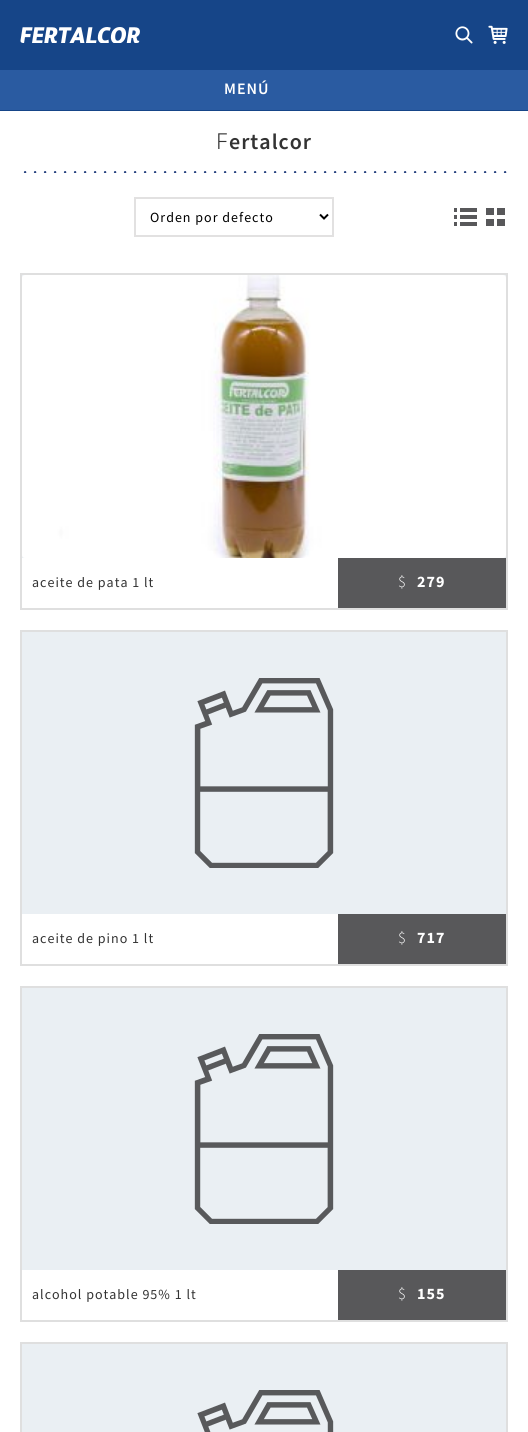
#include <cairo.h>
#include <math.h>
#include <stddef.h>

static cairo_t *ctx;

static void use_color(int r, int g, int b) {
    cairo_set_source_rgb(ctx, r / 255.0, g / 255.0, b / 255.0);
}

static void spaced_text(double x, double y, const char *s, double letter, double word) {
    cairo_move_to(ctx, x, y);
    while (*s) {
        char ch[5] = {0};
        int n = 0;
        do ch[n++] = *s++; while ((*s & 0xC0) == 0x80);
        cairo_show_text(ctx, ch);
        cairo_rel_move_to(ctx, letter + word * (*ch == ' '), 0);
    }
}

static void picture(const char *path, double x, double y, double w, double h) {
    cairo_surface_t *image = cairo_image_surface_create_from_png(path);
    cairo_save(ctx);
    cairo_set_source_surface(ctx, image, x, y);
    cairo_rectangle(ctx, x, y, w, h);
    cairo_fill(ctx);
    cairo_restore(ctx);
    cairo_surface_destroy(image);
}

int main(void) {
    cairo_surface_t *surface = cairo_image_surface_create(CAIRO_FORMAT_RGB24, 528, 1432);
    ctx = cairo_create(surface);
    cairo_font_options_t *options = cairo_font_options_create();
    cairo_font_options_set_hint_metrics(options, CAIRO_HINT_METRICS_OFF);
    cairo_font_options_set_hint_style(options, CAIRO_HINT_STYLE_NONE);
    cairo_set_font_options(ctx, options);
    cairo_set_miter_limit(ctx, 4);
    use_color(255, 255, 255);
    cairo_paint(ctx);
    use_color(22, 69, 136);
    cairo_rectangle(ctx, 0, 0, 528, 70);
    cairo_fill(ctx);
    picture("img1.png", 20, 27, 120, 16);
    picture("img2.png", 455, 26, 18, 18);
    picture("img3.png", 488, 25, 20, 19);
    use_color(42, 91, 161);
    cairo_rectangle(ctx, 0, 70, 528, 40);
    cairo_fill(ctx);
    use_color(22, 69, 136);
    cairo_rectangle(ctx, 0, 110, 528, 1);
    cairo_fill(ctx);
    cairo_select_font_face(ctx, "Mada SemiBold", CAIRO_FONT_SLANT_NORMAL, CAIRO_FONT_WEIGHT_NORMAL);
    cairo_set_font_size(ctx, 16);
    use_color(255, 255, 255);
    spaced_text(224, 94, "MENÚ", 1, 0);
    cairo_select_font_face(ctx, "Noto Sans Light", CAIRO_FONT_SLANT_NORMAL, CAIRO_FONT_WEIGHT_NORMAL);
    cairo_set_font_size(ctx, 22);
    use_color(51, 51, 51);
    spaced_text(216, 149, "F", 1, 0);
    cairo_select_font_face(ctx, "Mada SemiBold", CAIRO_FONT_SLANT_NORMAL, CAIRO_FONT_WEIGHT_NORMAL);
    spaced_text(229, 149, "ertalcor", 1, 0);
    picture("img4.png", 23, 171, 484, 2);
    cairo_rectangle(ctx, 135, 198, 198, 38);
    use_color(226, 225, 225);
    cairo_stroke(ctx);
    cairo_new_path(ctx);
    cairo_move_to(ctx, 320, 214.5);
    cairo_line_to(ctx, 324, 218.5);
    cairo_line_to(ctx, 328, 214.5);
    use_color(0, 0, 0);
    cairo_stroke(ctx);
    cairo_select_font_face(ctx, "Source Sans Pro", CAIRO_FONT_SLANT_NORMAL, CAIRO_FONT_WEIGHT_NORMAL);
    cairo_set_font_size(ctx, 14);
    spaced_text(150, 222, "Orden por defecto", 1, 0);
    picture("img5.png", 454, 208, 23, 18);
    use_color(88, 88, 90);
    cairo_rectangle(ctx, 486, 208, 8, 7);
    cairo_fill(ctx);
    cairo_rectangle(ctx, 497, 208, 8, 7);
    cairo_fill(ctx);
    cairo_rectangle(ctx, 486, 219, 8, 7);
    cairo_fill(ctx);
    cairo_rectangle(ctx, 497, 219, 8, 7);
    cairo_fill(ctx);
    cairo_rectangle(ctx, 21, 274, 486, 335);
    use_color(223, 223, 223);
    cairo_stroke(ctx);
    use_color(234, 239, 243);
    cairo_rectangle(ctx, 22, 275, 484, 283);
    cairo_fill(ctx);
    picture("img6.png", 22, 275, 484, 283);
    cairo_select_font_face(ctx, "Mada", CAIRO_FONT_SLANT_NORMAL, CAIRO_FONT_WEIGHT_NORMAL);
    use_color(51, 51, 51);
    spaced_text(32, 587, "aceite de pata 1 lt", 1, 0);
    use_color(88, 88, 90);
    cairo_rectangle(ctx, 338, 558, 168, 50);
    cairo_fill(ctx);
    cairo_select_font_face(ctx, "Mada Light", CAIRO_FONT_SLANT_NORMAL, CAIRO_FONT_WEIGHT_NORMAL);
    cairo_set_font_size(ctx, 16);
    use_color(255, 255, 255);
    spaced_text(398, 587, "$", 1, 0);
    cairo_select_font_face(ctx, "Mada", CAIRO_FONT_SLANT_NORMAL, CAIRO_FONT_WEIGHT_BOLD);
    spaced_text(417, 587, "279", 1, 0);
    cairo_rectangle(ctx, 21, 631, 486, 334);
    use_color(223, 223, 223);
    cairo_stroke(ctx);
    use_color(234, 239, 243);
    cairo_rectangle(ctx, 22, 632, 484, 282);
    cairo_fill(ctx);
    picture("img7.png", 194, 678, 140, 190);
    cairo_select_font_face(ctx, "Mada", CAIRO_FONT_SLANT_NORMAL, CAIRO_FONT_WEIGHT_NORMAL);
    cairo_set_font_size(ctx, 14);
    use_color(51, 51, 51);
    spaced_text(32, 943, "aceite de pino 1 lt", 1, 0);
    use_color(88, 88, 90);
    cairo_rectangle(ctx, 338, 914, 168, 50);
    cairo_fill(ctx);
    cairo_select_font_face(ctx, "Mada Light", CAIRO_FONT_SLANT_NORMAL, CAIRO_FONT_WEIGHT_NORMAL);
    cairo_set_font_size(ctx, 16);
    use_color(255, 255, 255);
    spaced_text(398, 943, "$", 1, 0);
    cairo_select_font_face(ctx, "Mada", CAIRO_FONT_SLANT_NORMAL, CAIRO_FONT_WEIGHT_BOLD);
    spaced_text(417, 943, "717", 1, 0);
    cairo_rectangle(ctx, 21, 987, 486, 334);
    use_color(223, 223, 223);
    cairo_stroke(ctx);
    use_color(234, 239, 243);
    cairo_rectangle(ctx, 22, 988, 484, 282);
    cairo_fill(ctx);
    picture("img7.png", 194, 1034, 140, 190);
    cairo_select_font_face(ctx, "Mada", CAIRO_FONT_SLANT_NORMAL, CAIRO_FONT_WEIGHT_NORMAL);
    cairo_set_font_size(ctx, 14);
    use_color(51, 51, 51);
    spaced_text(32, 1299, "alcohol potable 95% 1 lt", 1, 0);
    use_color(88, 88, 90);
    cairo_rectangle(ctx, 338, 1270, 168, 50);
    cairo_fill(ctx);
    cairo_select_font_face(ctx, "Mada Light", CAIRO_FONT_SLANT_NORMAL, CAIRO_FONT_WEIGHT_NORMAL);
    cairo_set_font_size(ctx, 16);
    use_color(255, 255, 255);
    spaced_text(398, 1299, "$", 1, 0);
    cairo_select_font_face(ctx, "Mada", CAIRO_FONT_SLANT_NORMAL, CAIRO_FONT_WEIGHT_BOLD);
    spaced_text(417, 1299, "155", 1, 0);
    cairo_rectangle(ctx, 21, 1343, 486, 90);
    use_color(223, 223, 223);
    cairo_stroke(ctx);
    use_color(234, 239, 243);
    cairo_rectangle(ctx, 22, 1344, 484, 88);
    cairo_fill(ctx);
    picture("img8.png", 197, 1390, 137, 42);
    cairo_surface_write_to_png(surface, "result.png");
    cairo_font_options_destroy(options);
    cairo_destroy(ctx);
    cairo_surface_destroy(surface);
    return 0;
}
